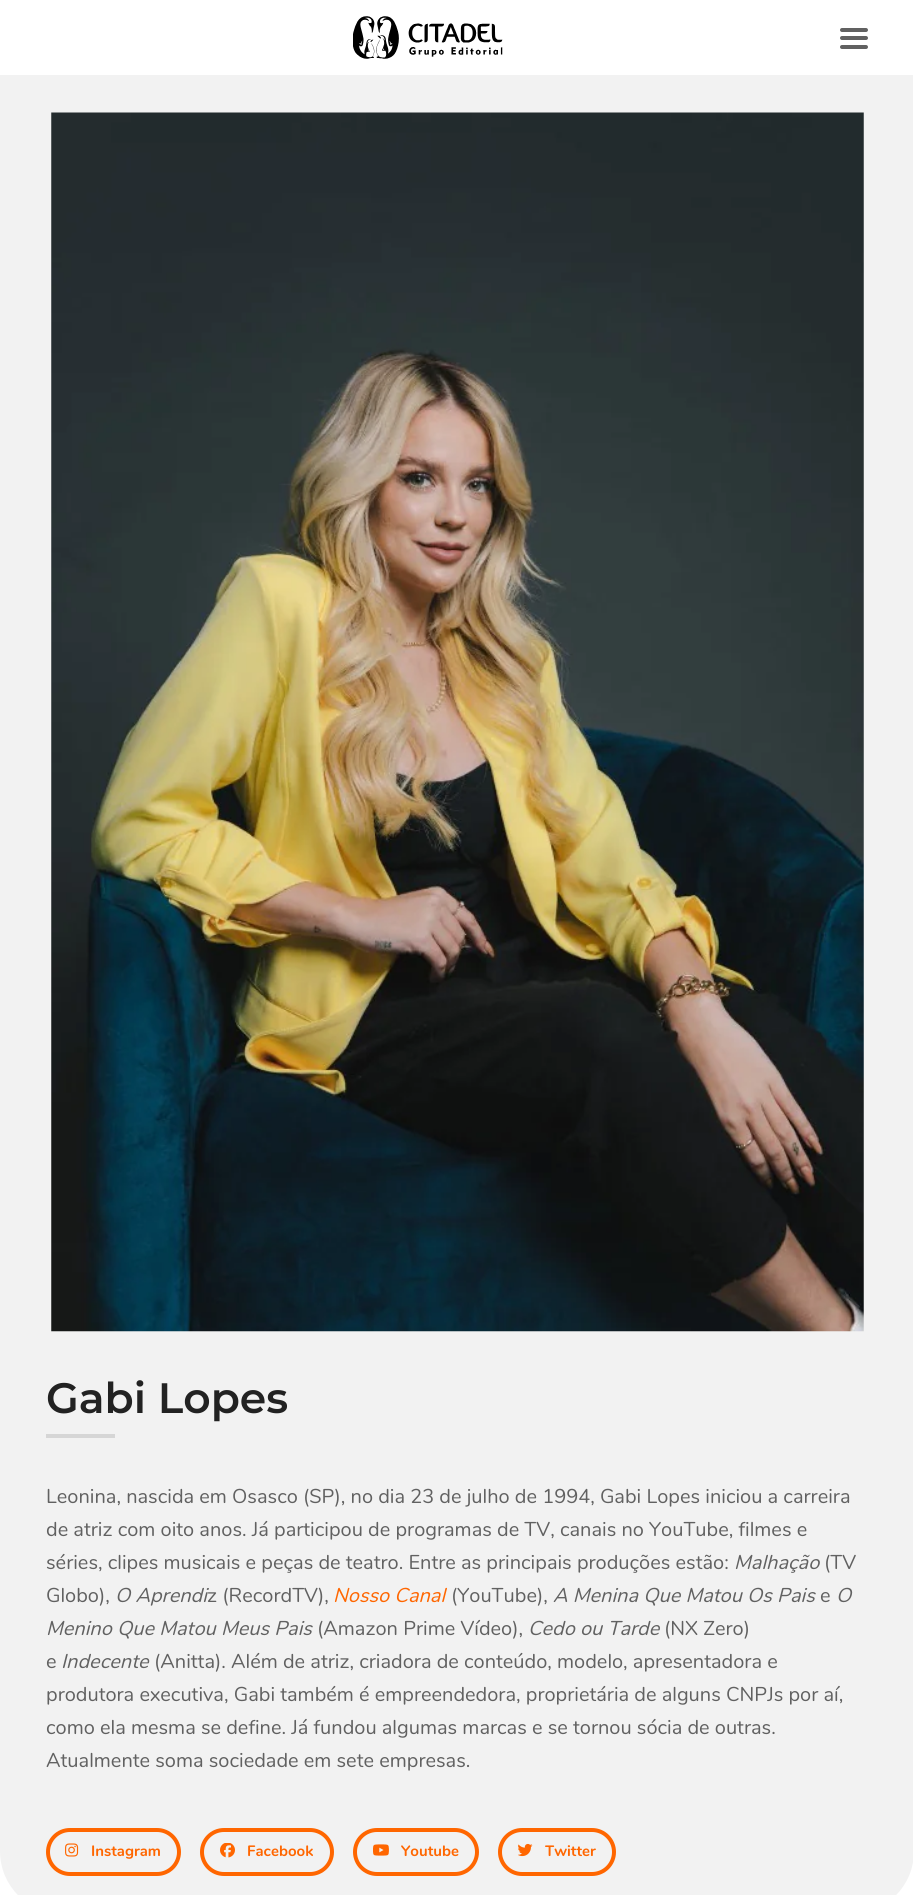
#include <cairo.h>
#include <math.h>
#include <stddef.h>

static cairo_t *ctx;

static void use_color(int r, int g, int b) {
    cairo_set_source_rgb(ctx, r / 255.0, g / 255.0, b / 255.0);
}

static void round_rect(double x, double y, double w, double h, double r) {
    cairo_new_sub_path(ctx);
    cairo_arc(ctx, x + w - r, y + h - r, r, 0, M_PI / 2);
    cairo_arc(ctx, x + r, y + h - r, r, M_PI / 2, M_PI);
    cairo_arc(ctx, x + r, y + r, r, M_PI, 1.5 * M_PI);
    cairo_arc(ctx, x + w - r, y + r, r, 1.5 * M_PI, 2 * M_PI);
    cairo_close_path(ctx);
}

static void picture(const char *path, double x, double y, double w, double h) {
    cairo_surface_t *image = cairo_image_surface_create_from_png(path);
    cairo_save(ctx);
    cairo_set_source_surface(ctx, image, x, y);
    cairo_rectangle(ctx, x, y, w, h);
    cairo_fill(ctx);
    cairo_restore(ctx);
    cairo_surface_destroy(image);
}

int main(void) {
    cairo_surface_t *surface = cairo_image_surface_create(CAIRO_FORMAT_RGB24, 913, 1895);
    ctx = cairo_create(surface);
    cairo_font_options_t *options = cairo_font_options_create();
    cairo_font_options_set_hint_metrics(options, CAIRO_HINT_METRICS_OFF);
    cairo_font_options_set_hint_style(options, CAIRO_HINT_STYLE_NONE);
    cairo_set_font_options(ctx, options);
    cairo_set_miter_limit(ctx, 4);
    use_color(255, 255, 255);
    cairo_paint(ctx);
    picture("img1.png", 353, 16, 150, 43);
    use_color(97, 97, 97);
    round_rect(840, 36, 28, 4, 2);
    cairo_fill(ctx);
    round_rect(840, 28, 28, 4, 2);
    cairo_fill(ctx);
    round_rect(840, 45, 28, 4, 2);
    cairo_fill(ctx);
    use_color(242, 242, 242);
    cairo_new_path(ctx);
    cairo_move_to(ctx, 0, 75);
    cairo_line_to(ctx, 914, 75);
    cairo_line_to(ctx, 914, 1851);
    cairo_curve_to(ctx, 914, 1886, 886, 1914, 851, 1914);
    cairo_line_to(ctx, 63, 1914);
    cairo_curve_to(ctx, 28, 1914, 0, 1886, 0, 1851);
    cairo_close_path(ctx);
    cairo_fill(ctx);
    picture("img2.png", 51, 112, 813, 1220);
    cairo_select_font_face(ctx, "Montserrat SemiBold", CAIRO_FONT_SLANT_NORMAL, CAIRO_FONT_WEIGHT_NORMAL);
    cairo_set_font_size(ctx, 42.5);
    use_color(34, 34, 34);
    cairo_move_to(ctx, 46, 1413);
    cairo_show_text(ctx, "Gabi Lopes");
    use_color(214, 214, 214);
    cairo_rectangle(ctx, 46, 1434, 69, 4);
    cairo_fill(ctx);
    cairo_select_font_face(ctx, "Nunito", CAIRO_FONT_SLANT_NORMAL, CAIRO_FONT_WEIGHT_NORMAL);
    cairo_set_font_size(ctx, 20);
    use_color(97, 97, 97);
    cairo_move_to(ctx, 46, 1503);
    cairo_show_text(ctx, "Leonina, nascida em Osasco (SP), no dia 23 de julho de 1994, Gabi Lopes iniciou a carreira");
    cairo_move_to(ctx, 46, 1536);
    cairo_show_text(ctx, "de atriz com oito anos. Já participou de programas de TV, canais no YouTube, filmes e");
    cairo_move_to(ctx, 46, 1569);
    cairo_show_text(ctx, "séries, clipes musicais e peças de teatro. Entre as principais produções estão:");
    cairo_select_font_face(ctx, "Nunito", CAIRO_FONT_SLANT_ITALIC, CAIRO_FONT_WEIGHT_NORMAL);
    cairo_move_to(ctx, 734, 1569);
    cairo_show_text(ctx, "Malhação");
    cairo_select_font_face(ctx, "Nunito", CAIRO_FONT_SLANT_NORMAL, CAIRO_FONT_WEIGHT_NORMAL);
    cairo_move_to(ctx, 824, 1569);
    cairo_show_text(ctx, "(TV");
    cairo_move_to(ctx, 46, 1602);
    cairo_show_text(ctx, "Globo),");
    cairo_select_font_face(ctx, "Nunito", CAIRO_FONT_SLANT_ITALIC, CAIRO_FONT_WEIGHT_NORMAL);
    cairo_move_to(ctx, 115, 1602);
    cairo_show_text(ctx, "O Aprendi");
    cairo_select_font_face(ctx, "Nunito", CAIRO_FONT_SLANT_NORMAL, CAIRO_FONT_WEIGHT_NORMAL);
    cairo_move_to(ctx, 207, 1602);
    cairo_show_text(ctx, "z (RecordTV),");
    cairo_select_font_face(ctx, "Nunito", CAIRO_FONT_SLANT_ITALIC, CAIRO_FONT_WEIGHT_NORMAL);
    use_color(255, 102, 0);
    cairo_move_to(ctx, 333, 1602);
    cairo_show_text(ctx, "Nosso Canal");
    cairo_select_font_face(ctx, "Nunito", CAIRO_FONT_SLANT_NORMAL, CAIRO_FONT_WEIGHT_NORMAL);
    use_color(97, 97, 97);
    cairo_move_to(ctx, 451, 1602);
    cairo_show_text(ctx, "(YouTube),");
    cairo_select_font_face(ctx, "Nunito", CAIRO_FONT_SLANT_ITALIC, CAIRO_FONT_WEIGHT_NORMAL);
    cairo_move_to(ctx, 553, 1602);
    cairo_show_text(ctx, "A Menina Que Matou Os Pais");
    cairo_select_font_face(ctx, "Nunito", CAIRO_FONT_SLANT_NORMAL, CAIRO_FONT_WEIGHT_NORMAL);
    cairo_move_to(ctx, 820, 1602);
    cairo_show_text(ctx, "e");
    cairo_select_font_face(ctx, "Nunito", CAIRO_FONT_SLANT_ITALIC, CAIRO_FONT_WEIGHT_NORMAL);
    cairo_move_to(ctx, 836, 1602);
    cairo_show_text(ctx, "O");
    cairo_move_to(ctx, 46, 1635);
    cairo_show_text(ctx, "Menino Que Matou Meus Pais");
    cairo_select_font_face(ctx, "Nunito", CAIRO_FONT_SLANT_NORMAL, CAIRO_FONT_WEIGHT_NORMAL);
    cairo_move_to(ctx, 317, 1635);
    cairo_show_text(ctx, "(Amazon Prime Vídeo),");
    cairo_select_font_face(ctx, "Nunito", CAIRO_FONT_SLANT_ITALIC, CAIRO_FONT_WEIGHT_NORMAL);
    cairo_move_to(ctx, 528, 1635);
    cairo_show_text(ctx, "Cedo ou Tarde");
    cairo_select_font_face(ctx, "Nunito", CAIRO_FONT_SLANT_NORMAL, CAIRO_FONT_WEIGHT_NORMAL);
    cairo_move_to(ctx, 664, 1635);
    cairo_show_text(ctx, "(NX Zero)");
    cairo_move_to(ctx, 46, 1668);
    cairo_show_text(ctx, "e");
    cairo_select_font_face(ctx, "Nunito", CAIRO_FONT_SLANT_ITALIC, CAIRO_FONT_WEIGHT_NORMAL);
    cairo_move_to(ctx, 61, 1668);
    cairo_show_text(ctx, "Indecente");
    cairo_select_font_face(ctx, "Nunito", CAIRO_FONT_SLANT_NORMAL, CAIRO_FONT_WEIGHT_NORMAL);
    cairo_move_to(ctx, 154, 1668);
    cairo_show_text(ctx, "(Anitta). Além de atriz, criadora de conteúdo, modelo, apresentadora e");
    cairo_move_to(ctx, 46, 1701);
    cairo_show_text(ctx, "produtora executiva, Gabi também é empreendedora, proprietária de alguns CNPJs por aí,");
    cairo_move_to(ctx, 46, 1734);
    cairo_show_text(ctx, "como ela mesma se define. Já fundou algumas marcas e se tornou sócia de outras.");
    cairo_move_to(ctx, 46, 1767);
    cairo_show_text(ctx, "Atualmente soma sociedade em sete empresas.");
    round_rect(48, 1830, 131, 44, 22);
    use_color(255, 102, 0);
    cairo_set_line_width(ctx, 4);
    cairo_stroke(ctx);
    picture("img3.png", 65, 1843, 14, 14);
    cairo_select_font_face(ctx, "Nunito", CAIRO_FONT_SLANT_NORMAL, CAIRO_FONT_WEIGHT_BOLD);
    cairo_set_font_size(ctx, 15);
    cairo_move_to(ctx, 91, 1856);
    cairo_show_text(ctx, "Instagram");
    round_rect(202, 1830, 130, 44, 22);
    cairo_stroke(ctx);
    picture("img4.png", 220, 1843, 15, 15);
    cairo_move_to(ctx, 247, 1856);
    cairo_show_text(ctx, "Facebook");
    round_rect(355, 1830, 122, 44, 22);
    cairo_stroke(ctx);
    picture("img5.png", 373, 1844, 16, 12);
    cairo_move_to(ctx, 401, 1856);
    cairo_show_text(ctx, "Youtube");
    round_rect(500, 1830, 114, 44, 22);
    cairo_stroke(ctx);
    picture("img6.png", 518, 1843, 15, 14);
    cairo_move_to(ctx, 545, 1856);
    cairo_show_text(ctx, "Twitter");
    cairo_surface_write_to_png(surface, "result.png");
    cairo_font_options_destroy(options);
    cairo_destroy(ctx);
    cairo_surface_destroy(surface);
    return 0;
}
